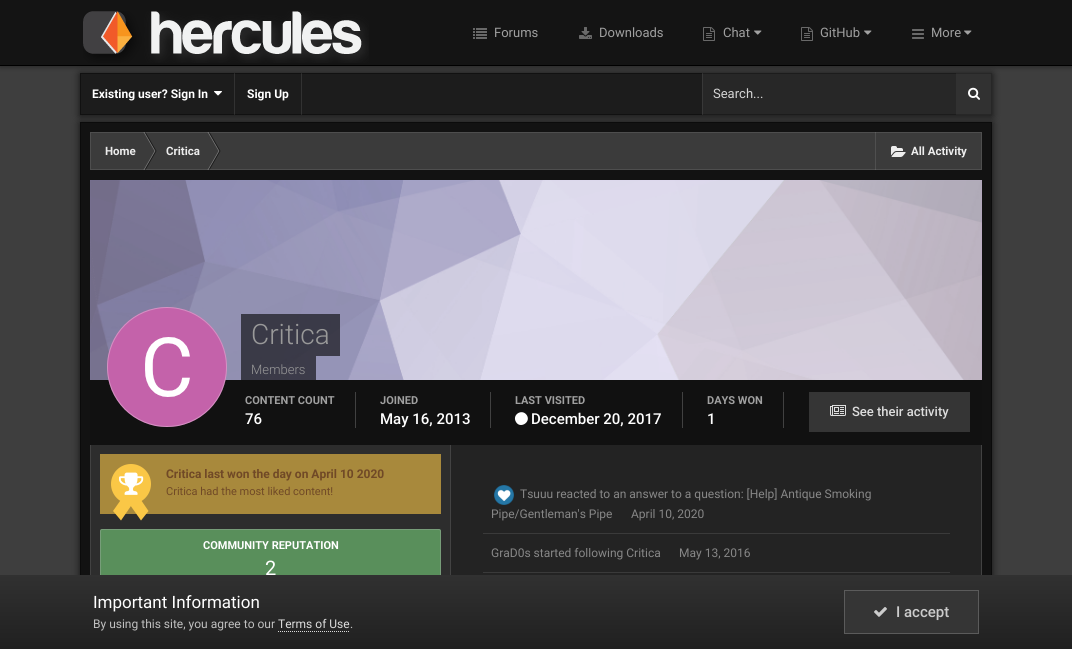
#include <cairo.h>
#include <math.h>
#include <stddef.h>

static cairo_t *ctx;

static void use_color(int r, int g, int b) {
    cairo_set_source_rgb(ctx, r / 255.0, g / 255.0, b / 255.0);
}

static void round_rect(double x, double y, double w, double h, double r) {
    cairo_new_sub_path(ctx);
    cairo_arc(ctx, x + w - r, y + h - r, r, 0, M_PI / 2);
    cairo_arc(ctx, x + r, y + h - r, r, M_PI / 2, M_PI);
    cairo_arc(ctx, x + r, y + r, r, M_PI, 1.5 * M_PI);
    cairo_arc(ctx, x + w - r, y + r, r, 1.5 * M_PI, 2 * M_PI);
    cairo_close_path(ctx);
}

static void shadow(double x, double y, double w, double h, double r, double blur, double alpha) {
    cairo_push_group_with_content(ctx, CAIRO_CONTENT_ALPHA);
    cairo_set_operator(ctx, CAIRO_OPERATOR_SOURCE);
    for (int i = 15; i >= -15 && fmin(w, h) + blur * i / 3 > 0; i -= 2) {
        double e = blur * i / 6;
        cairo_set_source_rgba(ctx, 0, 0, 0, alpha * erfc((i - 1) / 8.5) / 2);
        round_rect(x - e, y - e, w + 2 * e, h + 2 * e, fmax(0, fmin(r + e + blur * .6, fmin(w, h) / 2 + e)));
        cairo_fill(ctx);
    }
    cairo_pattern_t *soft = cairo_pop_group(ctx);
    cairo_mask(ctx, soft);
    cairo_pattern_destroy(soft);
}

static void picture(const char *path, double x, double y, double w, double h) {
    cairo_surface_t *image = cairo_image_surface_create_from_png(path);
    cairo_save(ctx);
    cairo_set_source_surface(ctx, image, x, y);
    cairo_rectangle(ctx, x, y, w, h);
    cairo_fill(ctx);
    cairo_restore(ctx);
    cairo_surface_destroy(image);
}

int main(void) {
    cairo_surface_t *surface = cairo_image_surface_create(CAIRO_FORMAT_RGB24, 1072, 649);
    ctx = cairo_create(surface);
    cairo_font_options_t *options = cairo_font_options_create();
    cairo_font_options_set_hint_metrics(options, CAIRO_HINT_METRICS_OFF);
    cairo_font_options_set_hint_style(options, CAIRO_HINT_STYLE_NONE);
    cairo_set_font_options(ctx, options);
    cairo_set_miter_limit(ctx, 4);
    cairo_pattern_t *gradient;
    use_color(62, 62, 62);
    cairo_paint(ctx);
    use_color(0, 0, 0);
    shadow(80, 74, 912, 42, 0, 4, 0.7);
    use_color(28, 28, 28);
    cairo_rectangle(ctx, 80.5, 73.5, 911, 41);
    cairo_fill_preserve(ctx);
    use_color(17, 17, 17);
    cairo_set_line_width(ctx, 1);
    cairo_stroke(ctx);
    use_color(0, 0, 0);
    shadow(80, 123, 912, 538, 0, 4, 0.7);
    cairo_set_source_rgba(ctx, 1, 1, 1, 0.1);
    cairo_rectangle(ctx, 301, 73, 1, 42);
    cairo_fill(ctx);
    cairo_rectangle(ctx, 234, 73, 1, 42);
    cairo_fill(ctx);
    cairo_set_source_rgba(ctx, 1, 1, 1, 0.05);
    cairo_rectangle(ctx, 702, 73, 290, 42);
    cairo_fill(ctx);
    cairo_set_source_rgba(ctx, 1, 1, 1, 0.08);
    cairo_rectangle(ctx, 702, 73, 1, 42);
    cairo_fill(ctx);
    cairo_set_source_rgba(ctx, 1, 1, 1, 0.05);
    cairo_rectangle(ctx, 956, 73, 36, 42);
    cairo_fill(ctx);
    use_color(0, 0, 0);
    shadow(0, 1, 1072, 66, 0, 2.5, 0.4);
    use_color(20, 20, 20);
    cairo_rectangle(ctx, 0, 0, 1072, 65);
    cairo_fill(ctx);
    use_color(0, 0, 0);
    cairo_rectangle(ctx, 0, 65, 1072, 1);
    cairo_fill(ctx);
    picture("img1.png", 83, 11, 286, 52);
    picture("img2.png", 473, 28, 14, 11);
    cairo_select_font_face(ctx, "Roboto", CAIRO_FONT_SLANT_NORMAL, CAIRO_FONT_WEIGHT_NORMAL);
    cairo_set_font_size(ctx, 13);
    use_color(160, 160, 160);
    cairo_move_to(ctx, 494, 37);
    cairo_show_text(ctx, "Forums");
    picture("img3.png", 579, 27, 13, 12);
    cairo_move_to(ctx, 599, 37);
    cairo_show_text(ctx, "Downloads");
    picture("img4.png", 703, 27, 12, 14);
    cairo_move_to(ctx, 723, 37);
    cairo_show_text(ctx, "Chat");
    picture("img5.png", 754, 30, 8, 5);
    picture("img4.png", 801, 27, 12, 14);
    cairo_move_to(ctx, 820, 37);
    cairo_show_text(ctx, "GitHub");
    picture("img5.png", 864, 30, 8, 5);
    picture("img6.png", 912, 29, 12, 10);
    cairo_move_to(ctx, 931, 37);
    cairo_show_text(ctx, "More");
    picture("img5.png", 964, 30, 8, 5);
    cairo_select_font_face(ctx, "Roboto", CAIRO_FONT_SLANT_NORMAL, CAIRO_FONT_WEIGHT_BOLD);
    cairo_set_font_size(ctx, 12);
    use_color(255, 255, 255);
    cairo_move_to(ctx, 92, 98);
    cairo_show_text(ctx, "Existing user? Sign In");
    picture("img7.png", 214, 91, 8, 5);
    cairo_move_to(ctx, 247, 98);
    cairo_show_text(ctx, "Sign Up");
    cairo_select_font_face(ctx, "Roboto", CAIRO_FONT_SLANT_NORMAL, CAIRO_FONT_WEIGHT_NORMAL);
    cairo_set_font_size(ctx, 13);
    use_color(212, 212, 212);
    cairo_move_to(ctx, 713, 98);
    cairo_show_text(ctx, "Search...");
    picture("img8.png", 968, 87, 12, 13);
    use_color(18, 18, 18);
    cairo_rectangle(ctx, 81, 123, 910, 452);
    cairo_fill(ctx);
    cairo_rectangle(ctx, 80.5, 122.5, 911, 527);
    use_color(11, 11, 11);
    cairo_stroke(ctx);
    use_color(59, 59, 59);
    cairo_rectangle(ctx, 90, 132, 892, 38);
    cairo_fill(ctx);
    use_color(118, 118, 118);
    cairo_new_path(ctx);
    cairo_move_to(ctx, 143.5, 132);
    cairo_line_to(ctx, 144.5, 132);
    cairo_line_to(ctx, 155.5, 151);
    cairo_line_to(ctx, 154.5, 151);
    cairo_close_path(ctx);
    cairo_fill(ctx);
    cairo_set_source_rgba(ctx, 0, 0, 0, 0.6);
    cairo_new_path(ctx);
    cairo_move_to(ctx, 144.5, 132);
    cairo_line_to(ctx, 145.5, 132);
    cairo_line_to(ctx, 156.5, 151);
    cairo_line_to(ctx, 155.5, 151);
    cairo_close_path(ctx);
    cairo_fill(ctx);
    use_color(118, 118, 118);
    cairo_new_path(ctx);
    cairo_move_to(ctx, 154.5, 151);
    cairo_line_to(ctx, 155.5, 151);
    cairo_line_to(ctx, 144.5, 170);
    cairo_line_to(ctx, 143.5, 170);
    cairo_close_path(ctx);
    cairo_fill(ctx);
    cairo_set_source_rgba(ctx, 0, 0, 0, 0.6);
    cairo_new_path(ctx);
    cairo_move_to(ctx, 155.5, 151);
    cairo_line_to(ctx, 156.5, 151);
    cairo_line_to(ctx, 145.5, 170);
    cairo_line_to(ctx, 144.5, 170);
    cairo_close_path(ctx);
    cairo_fill(ctx);
    use_color(118, 118, 118);
    cairo_new_path(ctx);
    cairo_move_to(ctx, 207.5, 132);
    cairo_line_to(ctx, 208.5, 132);
    cairo_line_to(ctx, 219.5, 151);
    cairo_line_to(ctx, 218.5, 151);
    cairo_close_path(ctx);
    cairo_fill(ctx);
    cairo_set_source_rgba(ctx, 0, 0, 0, 0.6);
    cairo_new_path(ctx);
    cairo_move_to(ctx, 208.5, 132);
    cairo_line_to(ctx, 209.5, 132);
    cairo_line_to(ctx, 220.5, 151);
    cairo_line_to(ctx, 219.5, 151);
    cairo_close_path(ctx);
    cairo_fill(ctx);
    use_color(118, 118, 118);
    cairo_new_path(ctx);
    cairo_move_to(ctx, 218.5, 151);
    cairo_line_to(ctx, 219.5, 151);
    cairo_line_to(ctx, 208.5, 170);
    cairo_line_to(ctx, 207.5, 170);
    cairo_close_path(ctx);
    cairo_fill(ctx);
    cairo_set_source_rgba(ctx, 0, 0, 0, 0.6);
    cairo_new_path(ctx);
    cairo_move_to(ctx, 219.5, 151);
    cairo_line_to(ctx, 220.5, 151);
    cairo_line_to(ctx, 209.5, 170);
    cairo_line_to(ctx, 208.5, 170);
    cairo_close_path(ctx);
    cairo_fill(ctx);
    use_color(79, 79, 79);
    cairo_rectangle(ctx, 875, 132, 1, 38);
    cairo_fill(ctx);
    picture("img9.png", 891, 146, 15, 11);
    cairo_rectangle(ctx, 90.5, 132.5, 891, 37);
    cairo_set_source_rgba(ctx, 0.749, 0.749, 0.749, 0.15);
    cairo_stroke(ctx);
    cairo_select_font_face(ctx, "Roboto", CAIRO_FONT_SLANT_NORMAL, CAIRO_FONT_WEIGHT_BOLD);
    cairo_set_font_size(ctx, 11.5);
    use_color(237, 237, 237);
    cairo_move_to(ctx, 105, 155);
    cairo_show_text(ctx, "Home");
    cairo_move_to(ctx, 166, 155);
    cairo_show_text(ctx, "Critica");
    cairo_move_to(ctx, 911, 155);
    cairo_show_text(ctx, "All Activity");
    use_color(35, 35, 35);
    cairo_rectangle(ctx, 451, 445, 530, 130);
    cairo_fill(ctx);
    cairo_rectangle(ctx, 90.5, 180.5, 891, 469);
    use_color(66, 66, 66);
    cairo_stroke(ctx);
    use_color(175, 153, 255);
    cairo_rectangle(ctx, 90, 180, 892, 200);
    cairo_fill(ctx);
    picture("img10.png", 90, 180, 892, 200);
    use_color(17, 17, 17);
    cairo_rectangle(ctx, 90, 380, 892, 65);
    cairo_fill(ctx);
    picture("img11.png", 107, 307, 120, 120);
    cairo_arc(ctx, 167, 367, 59.5, 0, 2 * M_PI);
    cairo_set_source_rgba(ctx, 1, 1, 1, 0.3);
    cairo_stroke(ctx);
    cairo_set_source_rgba(ctx, 0, 0, 0, 0.6);
    cairo_rectangle(ctx, 241, 314, 99, 42);
    cairo_fill(ctx);
    cairo_select_font_face(ctx, "Roboto Light", CAIRO_FONT_SLANT_NORMAL, CAIRO_FONT_WEIGHT_NORMAL);
    cairo_set_font_size(ctx, 28);
    use_color(153, 153, 153);
    cairo_move_to(ctx, 251, 344);
    cairo_show_text(ctx, "Critica");
    cairo_set_source_rgba(ctx, 0, 0, 0, 0.6);
    cairo_rectangle(ctx, 241, 356, 75, 24);
    cairo_fill(ctx);
    cairo_set_font_size(ctx, 13);
    use_color(153, 153, 153);
    cairo_move_to(ctx, 251, 374);
    cairo_show_text(ctx, "Members");
    use_color(65, 65, 65);
    cairo_rectangle(ctx, 355, 392, 1, 36);
    cairo_fill(ctx);
    cairo_select_font_face(ctx, "Roboto", CAIRO_FONT_SLANT_NORMAL, CAIRO_FONT_WEIGHT_BOLD);
    cairo_set_font_size(ctx, 11);
    use_color(160, 160, 160);
    cairo_move_to(ctx, 245, 404);
    cairo_show_text(ctx, "CONTENT COUNT");
    cairo_select_font_face(ctx, "Roboto Medium", CAIRO_FONT_SLANT_NORMAL, CAIRO_FONT_WEIGHT_NORMAL);
    cairo_set_font_size(ctx, 15);
    use_color(255, 255, 255);
    cairo_move_to(ctx, 245, 424);
    cairo_show_text(ctx, "76");
    use_color(65, 65, 65);
    cairo_rectangle(ctx, 490, 392, 1, 36);
    cairo_fill(ctx);
    cairo_select_font_face(ctx, "Roboto", CAIRO_FONT_SLANT_NORMAL, CAIRO_FONT_WEIGHT_BOLD);
    cairo_set_font_size(ctx, 11);
    use_color(160, 160, 160);
    cairo_move_to(ctx, 380, 404);
    cairo_show_text(ctx, "JOINED");
    cairo_select_font_face(ctx, "Roboto Medium", CAIRO_FONT_SLANT_NORMAL, CAIRO_FONT_WEIGHT_NORMAL);
    cairo_set_font_size(ctx, 15);
    use_color(255, 255, 255);
    cairo_move_to(ctx, 380, 424);
    cairo_show_text(ctx, "May 16, 2013");
    use_color(65, 65, 65);
    cairo_rectangle(ctx, 682, 392, 1, 36);
    cairo_fill(ctx);
    cairo_select_font_face(ctx, "Roboto", CAIRO_FONT_SLANT_NORMAL, CAIRO_FONT_WEIGHT_BOLD);
    cairo_set_font_size(ctx, 11);
    use_color(160, 160, 160);
    cairo_move_to(ctx, 515, 404);
    cairo_show_text(ctx, "LAST VISITED");
    use_color(255, 255, 255);
    cairo_new_path(ctx);
    cairo_move_to(ctx, 527, 415.5);
    cairo_curve_to(ctx, 531, 422.5, 520, 429, 516, 422);
    cairo_curve_to(ctx, 511.5, 414.5, 522.5, 408, 527, 415.5);
    cairo_close_path(ctx);
    cairo_fill(ctx);
    cairo_select_font_face(ctx, "Roboto Medium", CAIRO_FONT_SLANT_NORMAL, CAIRO_FONT_WEIGHT_NORMAL);
    cairo_set_font_size(ctx, 15);
    cairo_move_to(ctx, 531, 424);
    cairo_show_text(ctx, "December 20, 2017");
    use_color(65, 65, 65);
    cairo_rectangle(ctx, 783, 392, 1, 36);
    cairo_fill(ctx);
    cairo_select_font_face(ctx, "Roboto", CAIRO_FONT_SLANT_NORMAL, CAIRO_FONT_WEIGHT_BOLD);
    cairo_set_font_size(ctx, 11);
    use_color(160, 160, 160);
    cairo_move_to(ctx, 707, 404);
    cairo_show_text(ctx, "DAYS WON");
    cairo_select_font_face(ctx, "Roboto Medium", CAIRO_FONT_SLANT_NORMAL, CAIRO_FONT_WEIGHT_NORMAL);
    cairo_set_font_size(ctx, 15);
    use_color(255, 255, 255);
    cairo_move_to(ctx, 707, 424);
    cairo_show_text(ctx, "1");
    use_color(53, 53, 53);
    cairo_rectangle(ctx, 809, 392, 161, 40);
    cairo_fill(ctx);
    picture("img12.png", 830, 405, 16, 11);
    cairo_set_font_size(ctx, 13);
    use_color(221, 221, 221);
    cairo_move_to(ctx, 852, 416);
    cairo_show_text(ctx, "See their activity");
    use_color(45, 45, 45);
    cairo_rectangle(ctx, 91, 445, 359, 130);
    cairo_fill(ctx);
    use_color(67, 67, 67);
    cairo_rectangle(ctx, 450, 445, 1, 130);
    cairo_fill(ctx);
    use_color(168, 137, 60);
    cairo_rectangle(ctx, 100, 454, 341, 60);
    cairo_fill(ctx);
    use_color(250, 199, 70);
    cairo_arc(ctx, 131, 484, 20, 0, 2 * M_PI);
    cairo_fill(ctx);
    cairo_new_path(ctx);
    cairo_move_to(ctx, 131, 485.5);
    cairo_line_to(ctx, 138.5, 495);
    cairo_line_to(ctx, 121, 520.5);
    cairo_line_to(ctx, 113, 511);
    cairo_close_path(ctx);
    cairo_fill(ctx);
    cairo_new_path(ctx);
    cairo_move_to(ctx, 123, 495);
    cairo_line_to(ctx, 131, 485.5);
    cairo_line_to(ctx, 148.5, 511);
    cairo_line_to(ctx, 141, 520.5);
    cairo_close_path(ctx);
    cairo_fill(ctx);
    picture("img13.png", 119, 472, 25, 23);
    cairo_select_font_face(ctx, "Roboto", CAIRO_FONT_SLANT_NORMAL, CAIRO_FONT_WEIGHT_BOLD);
    cairo_set_font_size(ctx, 12);
    use_color(112, 73, 38);
    cairo_move_to(ctx, 166, 478);
    cairo_show_text(ctx, "Critica last won the day on April 10 2020");
    cairo_select_font_face(ctx, "Roboto", CAIRO_FONT_SLANT_NORMAL, CAIRO_FONT_WEIGHT_NORMAL);
    cairo_set_font_size(ctx, 11);
    cairo_move_to(ctx, 166, 495);
    cairo_show_text(ctx, "Critica had the most liked content!");
    round_rect(100.5, 529.5, 340, 107, 2.5);
    cairo_set_source_rgba(ctx, 0.749, 0.749, 0.749, 0.2);
    cairo_stroke(ctx);
    use_color(89, 143, 91);
    round_rect(100, 529, 341, 78, 2);
    cairo_fill(ctx);
    round_rect(100.5, 529.5, 340, 77, 1.5);
    cairo_set_source_rgba(ctx, 0.749, 0.749, 0.749, 0.3);
    cairo_stroke(ctx);
    cairo_select_font_face(ctx, "Roboto", CAIRO_FONT_SLANT_NORMAL, CAIRO_FONT_WEIGHT_BOLD);
    use_color(255, 255, 255);
    cairo_move_to(ctx, 203, 549);
    cairo_show_text(ctx, "COMMUNITY REPUTATION");
    cairo_select_font_face(ctx, "Roboto", CAIRO_FONT_SLANT_NORMAL, CAIRO_FONT_WEIGHT_NORMAL);
    cairo_set_font_size(ctx, 20);
    cairo_move_to(ctx, 265, 575);
    cairo_show_text(ctx, "2");
    use_color(58, 58, 58);
    cairo_rectangle(ctx, 483, 533, 467, 1);
    cairo_fill(ctx);
    picture("img14.png", 494, 485, 20, 20);
    cairo_set_font_size(ctx, 12);
    use_color(135, 135, 135);
    cairo_move_to(ctx, 520, 498);
    cairo_show_text(ctx, "Tsuuu reacted to an answer to a question: [Help] Antique Smoking");
    cairo_move_to(ctx, 491, 518);
    cairo_show_text(ctx, "Pipe/Gentleman's Pipe");
    cairo_move_to(ctx, 631, 518);
    cairo_show_text(ctx, "April 10, 2020");
    use_color(58, 58, 58);
    cairo_rectangle(ctx, 483, 572, 467, 1);
    cairo_fill(ctx);
    use_color(135, 135, 135);
    cairo_move_to(ctx, 491, 557);
    cairo_show_text(ctx, "GraD0s started following Critica");
    cairo_move_to(ctx, 679, 557);
    cairo_show_text(ctx, "May 13, 2016");
    gradient = cairo_pattern_create_linear(536, 575, 536, 649);
    cairo_pattern_add_color_stop_rgba(gradient, 0, 0.192, 0.192, 0.192, 1);
    cairo_pattern_add_color_stop_rgba(gradient, 1, 0.125, 0.125, 0.125, 1);
    cairo_set_source(ctx, gradient);
    cairo_pattern_destroy(gradient);
    cairo_rectangle(ctx, 0, 575, 1072, 74);
    cairo_fill(ctx);
    cairo_set_font_size(ctx, 17);
    use_color(255, 255, 255);
    cairo_move_to(ctx, 93, 608);
    cairo_show_text(ctx, "Important Information");
    cairo_set_font_size(ctx, 12);
    use_color(192, 192, 192);
    cairo_move_to(ctx, 93, 628);
    cairo_show_text(ctx, "By using this site, you agree to our");
    use_color(221, 221, 221);
    cairo_move_to(ctx, 278, 628);
    cairo_show_text(ctx, "Terms of Use");
    cairo_new_path(ctx);
    cairo_move_to(ctx, 278, 631.5);
    cairo_line_to(ctx, 350, 631.5);
    use_color(218, 218, 218);
    cairo_set_dash(ctx, (double[]){1, 1}, 2, 0);
    cairo_stroke(ctx);
    use_color(192, 192, 192);
    cairo_move_to(ctx, 350, 628);
    cairo_show_text(ctx, ".");
    use_color(53, 53, 53);
    cairo_rectangle(ctx, 845, 591, 133, 42);
    cairo_fill(ctx);
    picture("img15.png", 874, 607, 13, 10);
    cairo_rectangle(ctx, 844.5, 590.5, 134, 43);
    use_color(91, 91, 91);
    cairo_set_dash(ctx, NULL, 0, 0);
    cairo_stroke(ctx);
    cairo_select_font_face(ctx, "Roboto Medium", CAIRO_FONT_SLANT_NORMAL, CAIRO_FONT_WEIGHT_NORMAL);
    cairo_set_font_size(ctx, 15);
    use_color(204, 204, 204);
    cairo_move_to(ctx, 896, 617);
    cairo_show_text(ctx, "I accept");
    cairo_surface_write_to_png(surface, "result.png");
    cairo_font_options_destroy(options);
    cairo_destroy(ctx);
    cairo_surface_destroy(surface);
    return 0;
}
